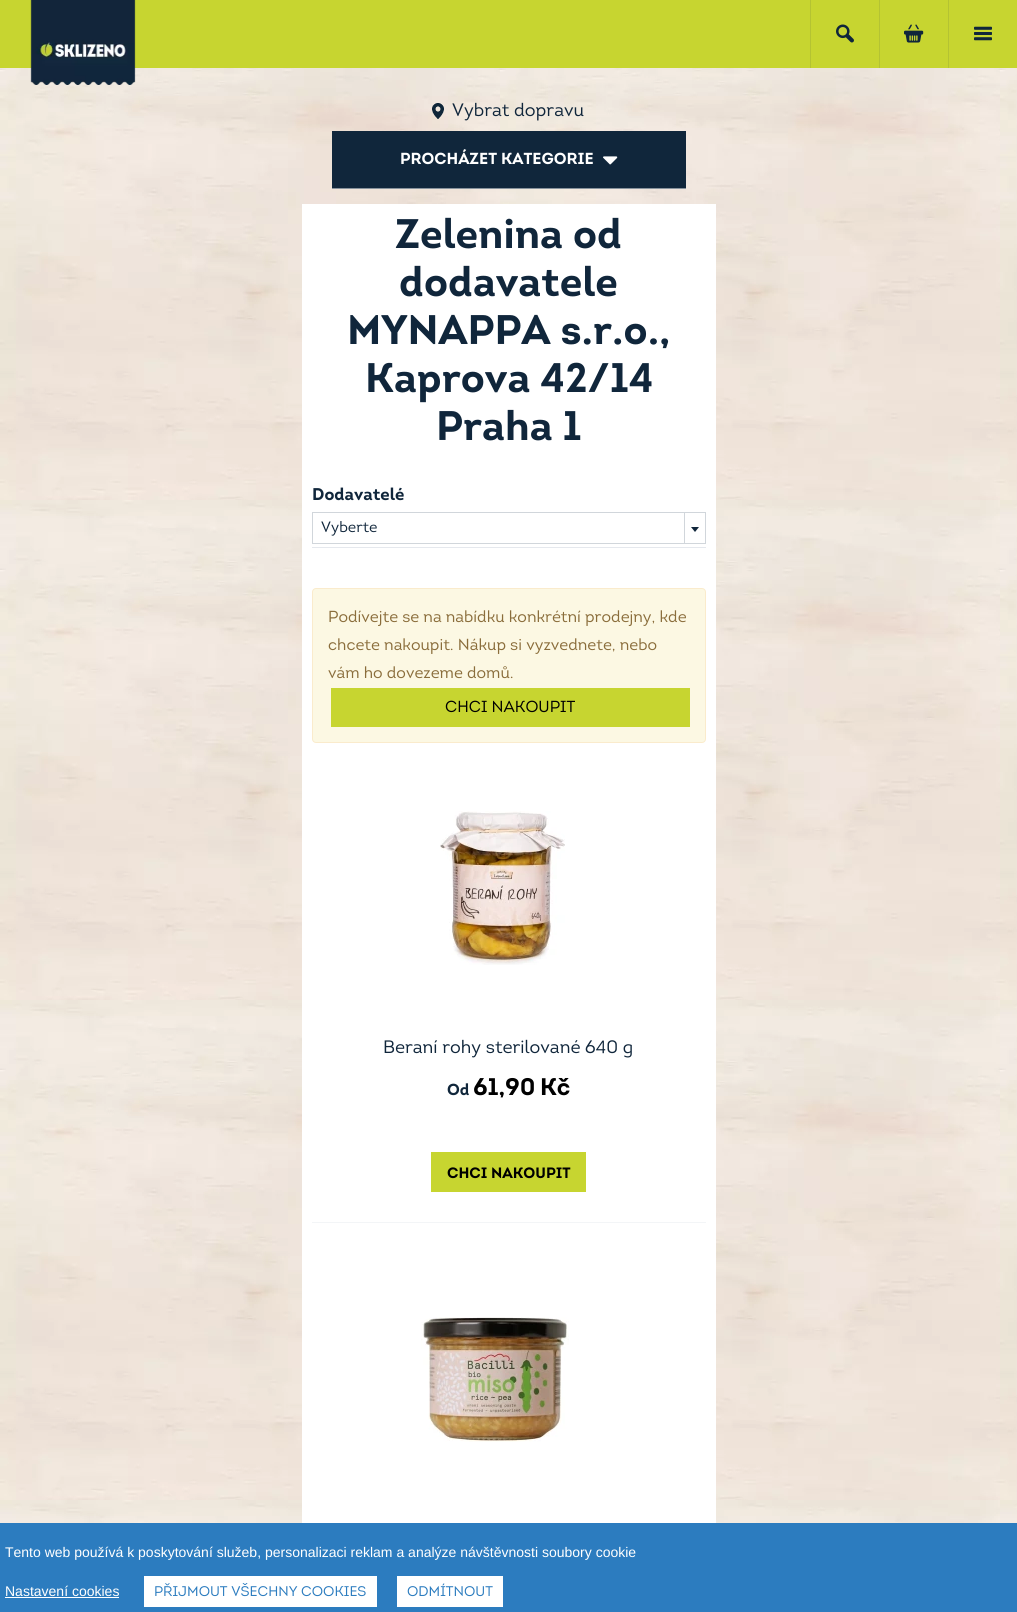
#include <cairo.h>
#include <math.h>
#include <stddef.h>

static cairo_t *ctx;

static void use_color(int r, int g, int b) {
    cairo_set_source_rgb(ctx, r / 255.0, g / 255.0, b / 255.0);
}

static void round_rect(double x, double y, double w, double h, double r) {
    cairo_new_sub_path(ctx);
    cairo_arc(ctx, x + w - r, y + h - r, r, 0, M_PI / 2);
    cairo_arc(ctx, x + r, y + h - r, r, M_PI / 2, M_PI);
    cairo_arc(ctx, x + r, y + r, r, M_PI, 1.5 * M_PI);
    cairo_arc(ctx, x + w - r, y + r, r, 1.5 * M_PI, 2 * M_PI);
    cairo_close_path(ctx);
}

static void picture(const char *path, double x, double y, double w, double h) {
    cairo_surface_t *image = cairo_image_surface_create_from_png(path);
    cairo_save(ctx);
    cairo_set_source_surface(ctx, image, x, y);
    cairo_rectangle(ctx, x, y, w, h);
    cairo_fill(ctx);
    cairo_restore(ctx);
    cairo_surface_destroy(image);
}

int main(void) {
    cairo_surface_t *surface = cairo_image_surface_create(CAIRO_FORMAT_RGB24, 1017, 1612);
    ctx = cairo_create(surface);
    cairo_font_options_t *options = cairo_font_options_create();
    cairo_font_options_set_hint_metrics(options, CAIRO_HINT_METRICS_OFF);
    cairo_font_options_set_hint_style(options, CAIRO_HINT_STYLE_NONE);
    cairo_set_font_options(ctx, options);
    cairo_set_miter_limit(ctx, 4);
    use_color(255, 255, 255);
    cairo_paint(ctx);
    picture("img1.png", 0, 68, 1017, 1455);
    use_color(199, 213, 48);
    cairo_rectangle(ctx, 0, 0, 1017, 68);
    cairo_fill(ctx);
    picture("img2.png", 30, 0, 106, 85);
    use_color(180, 195, 50);
    cairo_rectangle(ctx, 810, 0, 1, 68);
    cairo_fill(ctx);
    picture("img3.png", 836, 24, 18, 19);
    cairo_rectangle(ctx, 879, 0, 1, 68);
    cairo_fill(ctx);
    picture("img4.png", 904, 24, 20, 19);
    cairo_rectangle(ctx, 948, 0, 1, 68);
    cairo_fill(ctx);
    picture("img5.png", 974, 26, 18, 15);
    picture("img6.png", 432, 103, 12, 16);
    cairo_select_font_face(ctx, "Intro", CAIRO_FONT_SLANT_NORMAL, CAIRO_FONT_WEIGHT_NORMAL);
    cairo_set_font_size(ctx, 18);
    use_color(16, 38, 59);
    cairo_move_to(ctx, 452, 116);
    cairo_show_text(ctx, "Vybrat dopravu");
    cairo_rectangle(ctx, 332, 131, 354, 57);
    cairo_fill(ctx);
    use_color(136, 147, 157);
    cairo_rectangle(ctx, 332, 188, 354, 1);
    cairo_fill(ctx);
    cairo_select_font_face(ctx, "Intro", CAIRO_FONT_SLANT_NORMAL, CAIRO_FONT_WEIGHT_BOLD);
    cairo_set_font_size(ctx, 16);
    use_color(255, 255, 255);
    cairo_move_to(ctx, 400, 164);
    cairo_show_text(ctx, "PROCHÁZET KATEGORIE");
    picture("img7.png", 603, 156, 15, 9);
    cairo_rectangle(ctx, 302, 204, 414, 1319);
    cairo_fill(ctx);
    cairo_set_font_size(ctx, 41.25);
    use_color(16, 38, 59);
    cairo_move_to(ctx, 395, 248);
    cairo_show_text(ctx, "Zelenina od");
    cairo_move_to(ctx, 399, 296);
    cairo_show_text(ctx, "dodavatele");
    cairo_move_to(ctx, 347, 344);
    cairo_show_text(ctx, "MYNAPPA s.r.o.,");
    cairo_move_to(ctx, 365, 392);
    cairo_show_text(ctx, "Kaprova 42/14");
    cairo_move_to(ctx, 436, 440);
    cairo_show_text(ctx, "Praha 1");
    cairo_set_font_size(ctx, 17);
    cairo_move_to(ctx, 312, 500);
    cairo_show_text(ctx, "Dodavatelé");
    use_color(229, 232, 237);
    cairo_rectangle(ctx, 312, 547, 394, 1);
    cairo_fill(ctx);
    cairo_rectangle(ctx, 312.5, 512.5, 393, 31);
    use_color(209, 214, 219);
    cairo_set_line_width(ctx, 1);
    cairo_stroke(ctx);
    cairo_select_font_face(ctx, "Intro", CAIRO_FONT_SLANT_NORMAL, CAIRO_FONT_WEIGHT_NORMAL);
    cairo_set_font_size(ctx, 15);
    use_color(16, 38, 59);
    cairo_move_to(ctx, 321, 532);
    cairo_show_text(ctx, "Vyberte");
    use_color(209, 214, 219);
    cairo_rectangle(ctx, 684, 513, 1, 31);
    cairo_fill(ctx);
    use_color(16, 38, 59);
    cairo_new_path(ctx);
    cairo_move_to(ctx, 691, 527);
    cairo_line_to(ctx, 699, 527);
    cairo_line_to(ctx, 695, 532);
    cairo_close_path(ctx);
    cairo_fill(ctx);
    use_color(252, 248, 227);
    round_rect(312.5, 588.5, 393, 154, 3.5);
    cairo_fill_preserve(ctx);
    use_color(250, 235, 204);
    cairo_stroke(ctx);
    cairo_set_font_size(ctx, 16);
    use_color(138, 109, 59);
    cairo_move_to(ctx, 328, 622);
    cairo_show_text(ctx, "Podívejte se na nabídku konkrétní prodejny, kde");
    cairo_move_to(ctx, 328, 650);
    cairo_show_text(ctx, "chcete nakoupit. Nákup si vyzvednete, nebo");
    cairo_move_to(ctx, 328, 678);
    cairo_show_text(ctx, "vám ho dovezeme domů.");
    use_color(199, 213, 48);
    cairo_rectangle(ctx, 331, 688, 359, 39);
    cairo_fill(ctx);
    use_color(0, 0, 0);
    cairo_move_to(ctx, 445, 712);
    cairo_show_text(ctx, "CHCI NAKOUPIT");
    use_color(243, 245, 247);
    cairo_rectangle(ctx, 312, 1222, 394, 1);
    cairo_fill(ctx);
    picture("img8.png", 440, 811, 125, 154);
    cairo_set_font_size(ctx, 18);
    use_color(16, 38, 59);
    cairo_move_to(ctx, 383, 1053);
    cairo_show_text(ctx, "Beraní rohy sterilované 640 g");
    cairo_select_font_face(ctx, "Intro", CAIRO_FONT_SLANT_NORMAL, CAIRO_FONT_WEIGHT_BOLD);
    cairo_set_font_size(ctx, 16);
    cairo_move_to(ctx, 447, 1095);
    cairo_show_text(ctx, "Od");
    cairo_set_font_size(ctx, 24);
    use_color(0, 0, 0);
    cairo_move_to(ctx, 473, 1095);
    cairo_show_text(ctx, "61,90");
    cairo_move_to(ctx, 540, 1095);
    cairo_show_text(ctx, "Kč");
    use_color(199, 213, 48);
    cairo_rectangle(ctx, 431, 1152, 155, 40);
    cairo_fill(ctx);
    cairo_set_font_size(ctx, 15);
    use_color(0, 0, 0);
    cairo_move_to(ctx, 447, 1178);
    cairo_show_text(ctx, "CHCI NAKOUPIT");
    picture("img9.png", 421, 1317, 148, 125);
    use_color(44, 124, 191);
    cairo_rectangle(ctx, 0, 1523, 1017, 89);
    cairo_fill(ctx);
    cairo_select_font_face(ctx, "Liberation Sans", CAIRO_FONT_SLANT_NORMAL, CAIRO_FONT_WEIGHT_NORMAL);
    cairo_set_font_size(ctx, 14);
    use_color(255, 255, 255);
    cairo_move_to(ctx, 5, 1557);
    cairo_show_text(ctx, "Tento web používá k poskytování služeb, personalizaci reklam a analýze návštěvnosti soubory cookie");
    cairo_move_to(ctx, 5, 1596);
    cairo_show_text(ctx, "Nastavení cookies");
    cairo_rectangle(ctx, 5, 1597, 114, 1);
    cairo_fill(ctx);
    cairo_rectangle(ctx, 144, 1576, 233, 31);
    cairo_fill(ctx);
    cairo_select_font_face(ctx, "Intro", CAIRO_FONT_SLANT_NORMAL, CAIRO_FONT_WEIGHT_NORMAL);
    use_color(44, 124, 191);
    cairo_move_to(ctx, 154, 1596);
    cairo_show_text(ctx, "PŘIJMOUT VŠECHNY COOKIES");
    use_color(255, 255, 255);
    cairo_rectangle(ctx, 397, 1576, 106, 31);
    cairo_fill(ctx);
    use_color(44, 124, 191);
    cairo_move_to(ctx, 407, 1596);
    cairo_show_text(ctx, "ODMÍTNOUT");
    cairo_surface_write_to_png(surface, "result.png");
    cairo_font_options_destroy(options);
    cairo_destroy(ctx);
    cairo_surface_destroy(surface);
    return 0;
}
